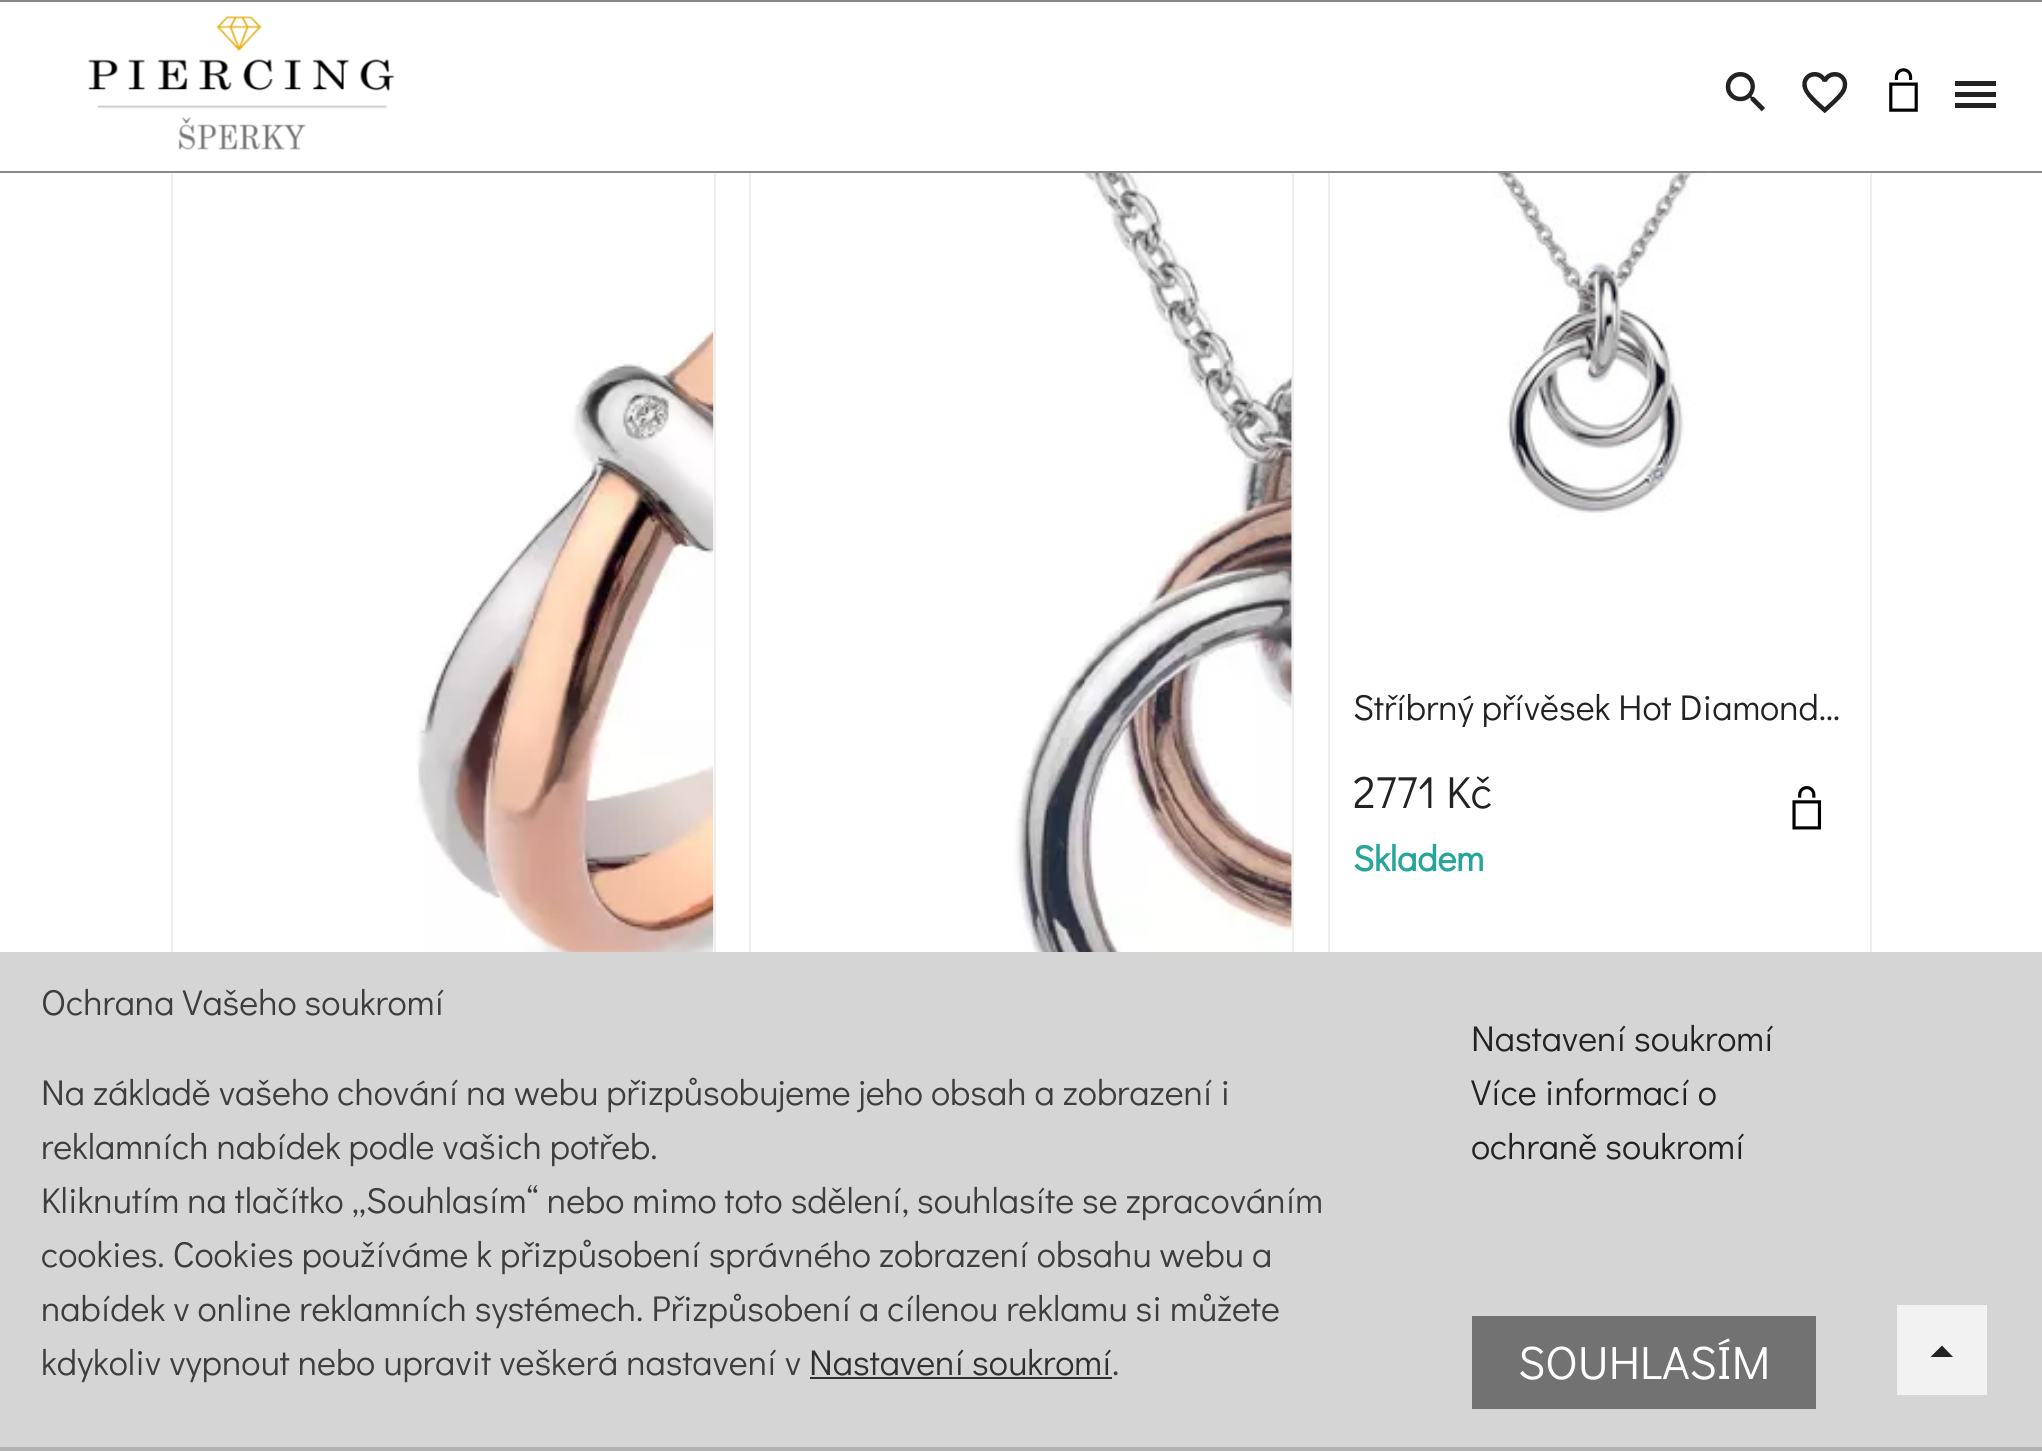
#include <cairo.h>
#include <math.h>
#include <stddef.h>

static cairo_t *ctx;

static void use_color(int r, int g, int b) {
    cairo_set_source_rgb(ctx, r / 255.0, g / 255.0, b / 255.0);
}

static void picture(const char *path, double x, double y, double w, double h) {
    cairo_surface_t *image = cairo_image_surface_create_from_png(path);
    cairo_save(ctx);
    cairo_set_source_surface(ctx, image, x, y);
    cairo_rectangle(ctx, x, y, w, h);
    cairo_fill(ctx);
    cairo_restore(ctx);
    cairo_surface_destroy(image);
}

int main(void) {
    cairo_surface_t *surface = cairo_image_surface_create(CAIRO_FORMAT_RGB24, 2042, 1451);
    ctx = cairo_create(surface);
    cairo_font_options_t *options = cairo_font_options_create();
    cairo_font_options_set_hint_metrics(options, CAIRO_HINT_METRICS_OFF);
    cairo_font_options_set_hint_style(options, CAIRO_HINT_STYLE_NONE);
    cairo_set_font_options(ctx, options);
    cairo_set_miter_limit(ctx, 4);
    use_color(255, 255, 255);
    cairo_paint(ctx);
    cairo_rectangle(ctx, 172, 35, 543, 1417);
    use_color(238, 238, 238);
    cairo_stroke(ctx);
    cairo_rectangle(ctx, 750, 35, 543, 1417);
    cairo_stroke(ctx);
    cairo_rectangle(ctx, 1329, 35, 542, 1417);
    cairo_stroke(ctx);
    use_color(255, 255, 255);
    cairo_rectangle(ctx, 171, 34, 1701, 137);
    cairo_fill(ctx);
    use_color(136, 136, 136);
    cairo_rectangle(ctx, 0, 171, 2042, 2);
    cairo_fill(ctx);
    cairo_rectangle(ctx, 0, 0, 2042, 2);
    cairo_fill(ctx);
    picture("img1.png", 1725, 72, 40, 40);
    picture("img2.png", 1802, 72, 46, 42);
    picture("img3.png", 1889, 68, 29, 44);
    use_color(34, 34, 34);
    cairo_new_path(ctx);
    cairo_move_to(ctx, 1955, 81);
    cairo_line_to(ctx, 1996, 81);
    cairo_line_to(ctx, 1996, 86);
    cairo_line_to(ctx, 1955, 86);
    cairo_close_path(ctx);
    cairo_move_to(ctx, 1955, 97);
    cairo_line_to(ctx, 1955, 92);
    cairo_line_to(ctx, 1996, 92);
    cairo_line_to(ctx, 1996, 97);
    cairo_close_path(ctx);
    cairo_move_to(ctx, 1955, 108);
    cairo_line_to(ctx, 1955, 103);
    cairo_line_to(ctx, 1996, 103);
    cairo_line_to(ctx, 1996, 108);
    cairo_close_path(ctx);
    cairo_fill(ctx);
    picture("img4.png", 88, 16, 307, 134);
    picture("img5.png", 174, 173, 540, 779);
    picture("img6.png", 752, 173, 540, 779);
    picture("img7.png", 1330, 173, 539, 344);
    cairo_save(ctx);
    cairo_rectangle(ctx, 1352, 689, 495, 38);
    cairo_clip(ctx);
    cairo_select_font_face(ctx, "Didact Gothic", CAIRO_FONT_SLANT_NORMAL, CAIRO_FONT_WEIGHT_NORMAL);
    cairo_set_font_size(ctx, 36);
    cairo_move_to(ctx, 1353, 720);
    cairo_show_text(ctx, "Stříbrný přívěsek Hot Diamond…");
    cairo_restore(ctx);
    cairo_select_font_face(ctx, "Didact Gothic", CAIRO_FONT_SLANT_NORMAL, CAIRO_FONT_WEIGHT_NORMAL);
    cairo_set_font_size(ctx, 45);
    cairo_move_to(ctx, 1353, 808);
    cairo_show_text(ctx, "2771 Kč");
    cairo_select_font_face(ctx, "Didact Gothic", CAIRO_FONT_SLANT_NORMAL, CAIRO_FONT_WEIGHT_BOLD);
    cairo_set_font_size(ctx, 36);
    use_color(38, 166, 154);
    cairo_move_to(ctx, 1353, 871);
    cairo_show_text(ctx, "Skladem");
    picture("img8.png", 1792, 786, 30, 44);
    use_color(213, 213, 213);
    cairo_rectangle(ctx, 0, 952, 2042, 495);
    cairo_fill(ctx);
    use_color(242, 242, 242);
    cairo_rectangle(ctx, 1897, 1305, 90, 90);
    cairo_fill(ctx);
    use_color(34, 34, 34);
    cairo_new_path(ctx);
    cairo_move_to(ctx, 1930.5, 1357);
    cairo_line_to(ctx, 1942, 1345.5);
    cairo_line_to(ctx, 1953, 1357);
    cairo_close_path(ctx);
    cairo_fill(ctx);
    use_color(178, 178, 178);
    cairo_rectangle(ctx, 0, 1447, 2042, 4);
    cairo_fill(ctx);
    cairo_select_font_face(ctx, "Didact Gothic", CAIRO_FONT_SLANT_NORMAL, CAIRO_FONT_WEIGHT_NORMAL);
    use_color(61, 61, 61);
    cairo_move_to(ctx, 41, 1015);
    cairo_show_text(ctx, "Ochrana Vašeho soukromí");
    cairo_move_to(ctx, 41, 1105);
    cairo_show_text(ctx, "Na základě vašeho chování na webu přizpůsobujeme jeho obsah a zobrazení i");
    cairo_move_to(ctx, 41, 1159);
    cairo_show_text(ctx, "reklamních nabídek podle vašich potřeb.");
    cairo_move_to(ctx, 41, 1213);
    cairo_show_text(ctx, "Kliknutím na tlačítko „Souhlasím“ nebo mimo toto sdělení, souhlasíte se zpracováním");
    cairo_move_to(ctx, 41, 1267);
    cairo_show_text(ctx, "cookies. Cookies používáme k přizpůsobení správného zobrazení obsahu webu a");
    cairo_move_to(ctx, 41, 1321);
    cairo_show_text(ctx, "nabídek v online reklamních systémech. Přizpůsobení a cílenou reklamu si můžete");
    cairo_move_to(ctx, 41, 1375);
    cairo_show_text(ctx, "kdykoliv vypnout nebo upravit veškerá nastavení v");
    use_color(48, 48, 48);
    cairo_move_to(ctx, 809, 1375);
    cairo_show_text(ctx, "Nastavení soukromí");
    cairo_rectangle(ctx, 810, 1377, 302, 2);
    cairo_fill(ctx);
    use_color(61, 61, 61);
    cairo_move_to(ctx, 1112, 1375);
    cairo_show_text(ctx, ".");
    use_color(34, 34, 34);
    cairo_move_to(ctx, 1471, 1051);
    cairo_show_text(ctx, "Nastavení soukromí");
    cairo_move_to(ctx, 1471, 1105);
    cairo_show_text(ctx, "Více informací o");
    cairo_move_to(ctx, 1471, 1159);
    cairo_show_text(ctx, "ochraně soukromí");
    use_color(114, 114, 114);
    cairo_rectangle(ctx, 1472, 1316, 344, 93);
    cairo_fill(ctx);
    cairo_set_font_size(ctx, 46.75);
    use_color(255, 255, 255);
    cairo_move_to(ctx, 1518, 1379);
    cairo_show_text(ctx, "SOUHLASÍM");
    cairo_surface_write_to_png(surface, "result.png");
    cairo_font_options_destroy(options);
    cairo_destroy(ctx);
    cairo_surface_destroy(surface);
    return 0;
}
